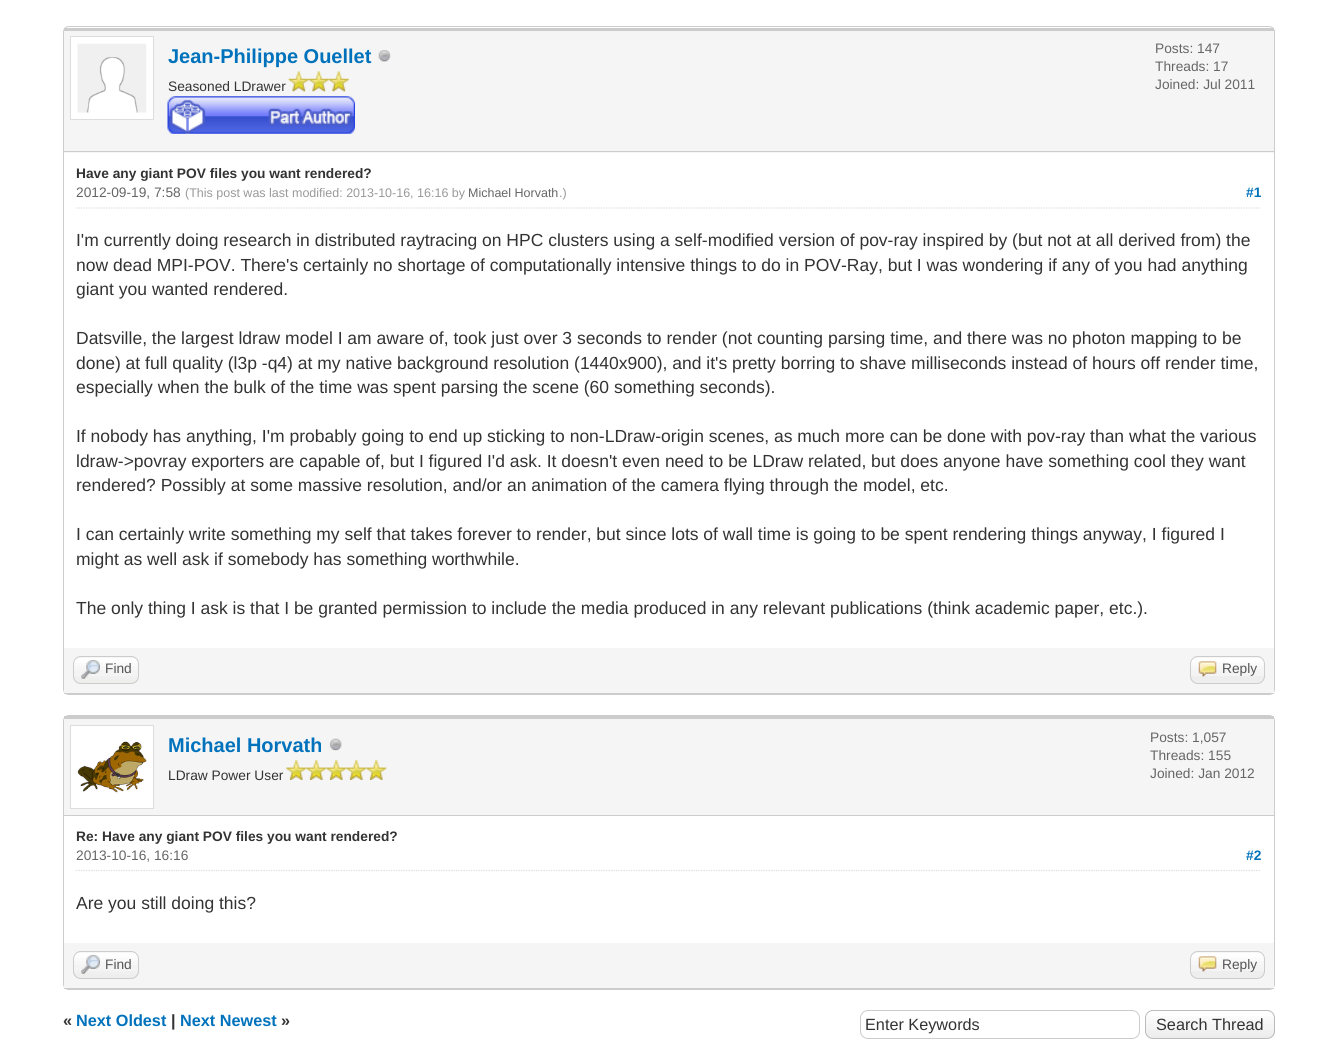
#include <cairo.h>
#include <math.h>
#include <stddef.h>

static cairo_t *ctx;

static void use_color(int r, int g, int b) {
    cairo_set_source_rgb(ctx, r / 255.0, g / 255.0, b / 255.0);
}

static void round_rect(double x, double y, double w, double h, double r) {
    cairo_new_sub_path(ctx);
    cairo_arc(ctx, x + w - r, y + h - r, r, 0, M_PI / 2);
    cairo_arc(ctx, x + r, y + h - r, r, M_PI / 2, M_PI);
    cairo_arc(ctx, x + r, y + r, r, M_PI, 1.5 * M_PI);
    cairo_arc(ctx, x + w - r, y + r, r, 1.5 * M_PI, 2 * M_PI);
    cairo_close_path(ctx);
}

static void picture(const char *path, double x, double y, double w, double h) {
    cairo_surface_t *image = cairo_image_surface_create_from_png(path);
    cairo_save(ctx);
    cairo_set_source_surface(ctx, image, x, y);
    cairo_rectangle(ctx, x, y, w, h);
    cairo_fill(ctx);
    cairo_restore(ctx);
    cairo_surface_destroy(image);
}

int main(void) {
    cairo_surface_t *surface = cairo_image_surface_create(CAIRO_FORMAT_RGB24, 1337, 1062);
    ctx = cairo_create(surface);
    cairo_font_options_t *options = cairo_font_options_create();
    cairo_font_options_set_hint_metrics(options, CAIRO_HINT_METRICS_OFF);
    cairo_font_options_set_hint_style(options, CAIRO_HINT_STYLE_NONE);
    cairo_set_font_options(ctx, options);
    cairo_set_miter_limit(ctx, 4);
    use_color(255, 255, 255);
    cairo_paint(ctx);
    round_rect(63.5, 26.5, 1211, 668, 5.5);
    use_color(204, 204, 204);
    cairo_set_line_width(ctx, 1);
    cairo_stroke(ctx);
    use_color(245, 245, 245);
    cairo_rectangle(ctx, 64, 31, 1210, 122);
    cairo_fill(ctx);
    use_color(204, 204, 204);
    cairo_rectangle(ctx, 64, 28, 1210, 3);
    cairo_fill(ctx);
    cairo_rectangle(ctx, 64, 151, 1210, 1);
    cairo_fill(ctx);
    use_color(255, 255, 255);
    cairo_rectangle(ctx, 70.5, 36.5, 83, 83);
    cairo_fill_preserve(ctx);
    use_color(221, 221, 221);
    cairo_stroke(ctx);
    picture("img1.png", 77, 43, 70, 70);
    cairo_select_font_face(ctx, "Liberation Sans", CAIRO_FONT_SLANT_NORMAL, CAIRO_FONT_WEIGHT_BOLD);
    cairo_set_font_size(ctx, 20);
    use_color(0, 114, 188);
    cairo_move_to(ctx, 168, 63);
    cairo_show_text(ctx, "Jean-Philippe Ouellet");
    picture("img2.png", 378, 50, 13, 12);
    cairo_select_font_face(ctx, "Liberation Sans", CAIRO_FONT_SLANT_NORMAL, CAIRO_FONT_WEIGHT_NORMAL);
    cairo_set_font_size(ctx, 13.75);
    use_color(51, 51, 51);
    cairo_move_to(ctx, 168, 91);
    cairo_show_text(ctx, "Seasoned LDrawer");
    picture("img3.png", 288, 71, 21, 21);
    picture("img4.png", 308, 71, 21, 21);
    picture("img4.png", 328, 71, 21, 21);
    picture("img5.png", 167, 96, 188, 38);
    use_color(102, 102, 102);
    cairo_move_to(ctx, 1155, 53);
    cairo_show_text(ctx, "Posts: 147");
    cairo_move_to(ctx, 1155, 71);
    cairo_show_text(ctx, "Threads: 17");
    cairo_move_to(ctx, 1155, 89);
    cairo_show_text(ctx, "Joined: Jul 2011");
    cairo_new_path(ctx);
    cairo_move_to(ctx, 76, 208);
    cairo_line_to(ctx, 1261, 208);
    use_color(221, 221, 221);
    cairo_set_line_width(ctx, 1.2);
    cairo_set_dash(ctx, (double[]){1.25, 1.25}, 2, 0);
    cairo_stroke(ctx);
    cairo_select_font_face(ctx, "Liberation Sans", CAIRO_FONT_SLANT_NORMAL, CAIRO_FONT_WEIGHT_BOLD);
    use_color(51, 51, 51);
    cairo_move_to(ctx, 76, 178);
    cairo_show_text(ctx, "Have any giant POV files you want rendered?");
    cairo_select_font_face(ctx, "Liberation Sans", CAIRO_FONT_SLANT_NORMAL, CAIRO_FONT_WEIGHT_NORMAL);
    use_color(102, 102, 102);
    cairo_move_to(ctx, 76, 197);
    cairo_show_text(ctx, "2012-09-19, 7:58");
    cairo_set_font_size(ctx, 12.5);
    use_color(153, 153, 153);
    cairo_move_to(ctx, 185, 197);
    cairo_show_text(ctx, "(This post was last modified: 2013-10-16, 16:16 by");
    use_color(102, 102, 102);
    cairo_move_to(ctx, 468, 197);
    cairo_show_text(ctx, "Michael Horvath");
    use_color(153, 153, 153);
    cairo_move_to(ctx, 559, 197);
    cairo_show_text(ctx, ".)");
    cairo_select_font_face(ctx, "Liberation Sans", CAIRO_FONT_SLANT_NORMAL, CAIRO_FONT_WEIGHT_BOLD);
    cairo_set_font_size(ctx, 13.75);
    use_color(0, 114, 188);
    cairo_move_to(ctx, 1246, 197);
    cairo_show_text(ctx, "#1");
    cairo_select_font_face(ctx, "Liberation Sans", CAIRO_FONT_SLANT_NORMAL, CAIRO_FONT_WEIGHT_NORMAL);
    cairo_set_font_size(ctx, 17.5);
    use_color(51, 51, 51);
    cairo_move_to(ctx, 76, 246);
    cairo_show_text(ctx, "I'm currently doing research in distributed raytracing on HPC clusters using a self-modified version of pov-ray inspired by (but not at all derived from) the");
    cairo_move_to(ctx, 76, 271);
    cairo_show_text(ctx, "now dead MPI-POV. There's certainly no shortage of computationally intensive things to do in POV-Ray, but I was wondering if any of you had anything");
    cairo_move_to(ctx, 76, 295);
    cairo_show_text(ctx, "giant you wanted rendered.");
    cairo_move_to(ctx, 76, 344);
    cairo_show_text(ctx, "Datsville, the largest ldraw model I am aware of, took just over 3 seconds to render (not counting parsing time, and there was no photon mapping to be");
    cairo_move_to(ctx, 76, 369);
    cairo_show_text(ctx, "done) at full quality (l3p -q4) at my native background resolution (1440x900), and it's pretty borring to shave milliseconds instead of hours off render time,");
    cairo_move_to(ctx, 76, 393);
    cairo_show_text(ctx, "especially when the bulk of the time was spent parsing the scene (60 something seconds).");
    cairo_move_to(ctx, 76, 442);
    cairo_show_text(ctx, "If nobody has anything, I'm probably going to end up sticking to non-LDraw-origin scenes, as much more can be done with pov-ray than what the various");
    cairo_move_to(ctx, 76, 467);
    cairo_show_text(ctx, "ldraw->povray exporters are capable of, but I figured I'd ask. It doesn't even need to be LDraw related, but does anyone have something cool they want");
    cairo_move_to(ctx, 76, 491);
    cairo_show_text(ctx, "rendered? Possibly at some massive resolution, and/or an animation of the camera flying through the model, etc.");
    cairo_move_to(ctx, 76, 540);
    cairo_show_text(ctx, "I can certainly write something my self that takes forever to render, but since lots of wall time is going to be spent rendering things anyway, I figured I");
    cairo_move_to(ctx, 76, 565);
    cairo_show_text(ctx, "might as well ask if somebody has something worthwhile.");
    cairo_move_to(ctx, 76, 614);
    cairo_show_text(ctx, "The only thing I ask is that I be granted permission to include the media produced in any relevant publications (think academic paper, etc.).");
    use_color(245, 245, 245);
    cairo_rectangle(ctx, 64, 648, 1210, 45);
    cairo_fill(ctx);
    use_color(204, 204, 204);
    cairo_rectangle(ctx, 64, 693, 1210, 1);
    cairo_fill(ctx);
    use_color(238, 238, 238);
    round_rect(73, 656, 66, 28, 8);
    cairo_fill(ctx);
    picture("img6.png", 73, 657, 66, 26);
    round_rect(73.5, 656.5, 65, 27, 7.5);
    use_color(204, 204, 204);
    cairo_set_line_width(ctx, 1);
    cairo_set_dash(ctx, NULL, 0, 0);
    cairo_stroke(ctx);
    picture("img7.png", 81, 660, 19, 19);
    cairo_set_font_size(ctx, 13.75);
    use_color(85, 85, 85);
    cairo_move_to(ctx, 105, 673);
    cairo_show_text(ctx, "Find");
    use_color(238, 238, 238);
    round_rect(1190, 656, 75, 28, 8);
    cairo_fill(ctx);
    picture("img8.png", 1190, 657, 75, 19);
    round_rect(1190.5, 656.5, 74, 27, 7.5);
    use_color(204, 204, 204);
    cairo_stroke(ctx);
    picture("img9.png", 1198, 661, 19, 16);
    use_color(85, 85, 85);
    cairo_move_to(ctx, 1222, 673);
    cairo_show_text(ctx, "Reply");
    round_rect(63.5, 715.5, 1211, 274, 5.5);
    use_color(204, 204, 204);
    cairo_stroke(ctx);
    use_color(245, 245, 245);
    cairo_rectangle(ctx, 64, 719, 1210, 96);
    cairo_fill(ctx);
    use_color(204, 204, 204);
    cairo_rectangle(ctx, 64, 716, 1210, 3);
    cairo_fill(ctx);
    cairo_rectangle(ctx, 64, 815, 1210, 1);
    cairo_fill(ctx);
    use_color(255, 255, 255);
    cairo_rectangle(ctx, 70.5, 725.5, 83, 83);
    cairo_fill_preserve(ctx);
    use_color(221, 221, 221);
    cairo_stroke(ctx);
    picture("img10.png", 77, 741, 70, 52);
    cairo_select_font_face(ctx, "Liberation Sans", CAIRO_FONT_SLANT_NORMAL, CAIRO_FONT_WEIGHT_BOLD);
    cairo_set_font_size(ctx, 20);
    use_color(0, 114, 188);
    cairo_move_to(ctx, 168, 752);
    cairo_show_text(ctx, "Michael Horvath");
    picture("img11.png", 329, 738, 13, 13);
    cairo_select_font_face(ctx, "Liberation Sans", CAIRO_FONT_SLANT_NORMAL, CAIRO_FONT_WEIGHT_NORMAL);
    cairo_set_font_size(ctx, 13.75);
    use_color(51, 51, 51);
    cairo_move_to(ctx, 168, 780);
    cairo_show_text(ctx, "LDraw Power User");
    picture("img12.png", 286, 760, 21, 20);
    picture("img13.png", 306, 760, 21, 20);
    picture("img13.png", 326, 760, 21, 20);
    picture("img13.png", 346, 760, 21, 20);
    picture("img13.png", 366, 760, 21, 20);
    use_color(102, 102, 102);
    cairo_move_to(ctx, 1150, 742);
    cairo_show_text(ctx, "Posts: 1,057");
    cairo_move_to(ctx, 1150, 760);
    cairo_show_text(ctx, "Threads: 155");
    cairo_move_to(ctx, 1150, 778);
    cairo_show_text(ctx, "Joined: Jan 2012");
    cairo_new_path(ctx);
    cairo_move_to(ctx, 76, 870.5);
    cairo_line_to(ctx, 1261, 870.5);
    use_color(221, 221, 221);
    cairo_set_line_width(ctx, 1.2);
    cairo_set_dash(ctx, (double[]){1.25, 1.25}, 2, 0);
    cairo_stroke(ctx);
    cairo_select_font_face(ctx, "Liberation Sans", CAIRO_FONT_SLANT_NORMAL, CAIRO_FONT_WEIGHT_BOLD);
    use_color(51, 51, 51);
    cairo_move_to(ctx, 76, 841);
    cairo_show_text(ctx, "Re: Have any giant POV files you want rendered?");
    cairo_select_font_face(ctx, "Liberation Sans", CAIRO_FONT_SLANT_NORMAL, CAIRO_FONT_WEIGHT_NORMAL);
    use_color(102, 102, 102);
    cairo_move_to(ctx, 76, 860);
    cairo_show_text(ctx, "2013-10-16, 16:16");
    cairo_select_font_face(ctx, "Liberation Sans", CAIRO_FONT_SLANT_NORMAL, CAIRO_FONT_WEIGHT_BOLD);
    use_color(0, 114, 188);
    cairo_move_to(ctx, 1246, 860);
    cairo_show_text(ctx, "#2");
    cairo_select_font_face(ctx, "Liberation Sans", CAIRO_FONT_SLANT_NORMAL, CAIRO_FONT_WEIGHT_NORMAL);
    cairo_set_font_size(ctx, 17.5);
    use_color(51, 51, 51);
    cairo_move_to(ctx, 76, 909);
    cairo_show_text(ctx, "Are you still doing this?");
    use_color(245, 245, 245);
    cairo_rectangle(ctx, 64, 943, 1210, 45);
    cairo_fill(ctx);
    use_color(204, 204, 204);
    cairo_rectangle(ctx, 64, 988, 1210, 1);
    cairo_fill(ctx);
    use_color(238, 238, 238);
    round_rect(73, 951, 66, 28, 8);
    cairo_fill(ctx);
    picture("img6.png", 73, 952, 66, 26);
    round_rect(73.5, 951.5, 65, 27, 7.5);
    use_color(204, 204, 204);
    cairo_set_line_width(ctx, 1);
    cairo_set_dash(ctx, NULL, 0, 0);
    cairo_stroke(ctx);
    picture("img7.png", 81, 955, 19, 19);
    cairo_set_font_size(ctx, 13.75);
    use_color(85, 85, 85);
    cairo_move_to(ctx, 105, 969);
    cairo_show_text(ctx, "Find");
    use_color(238, 238, 238);
    round_rect(1190, 951, 75, 28, 8);
    cairo_fill(ctx);
    picture("img8.png", 1190, 952, 75, 19);
    round_rect(1190.5, 951.5, 74, 27, 7.5);
    use_color(204, 204, 204);
    cairo_stroke(ctx);
    picture("img9.png", 1198, 956, 19, 16);
    use_color(85, 85, 85);
    cairo_move_to(ctx, 1222, 969);
    cairo_show_text(ctx, "Reply");
    cairo_select_font_face(ctx, "Liberation Sans", CAIRO_FONT_SLANT_NORMAL, CAIRO_FONT_WEIGHT_BOLD);
    cairo_set_font_size(ctx, 16.25);
    use_color(51, 51, 51);
    cairo_move_to(ctx, 63, 1026);
    cairo_show_text(ctx, "«");
    use_color(0, 114, 188);
    cairo_move_to(ctx, 76, 1026);
    cairo_show_text(ctx, "Next Oldest");
    use_color(51, 51, 51);
    cairo_move_to(ctx, 171, 1026);
    cairo_show_text(ctx, "|");
    use_color(0, 114, 188);
    cairo_move_to(ctx, 180, 1026);
    cairo_show_text(ctx, "Next Newest");
    use_color(51, 51, 51);
    cairo_move_to(ctx, 281, 1026);
    cairo_show_text(ctx, "»");
    round_rect(860.5, 1010.5, 279, 28, 7.5);
    use_color(204, 204, 204);
    cairo_stroke(ctx);
    cairo_select_font_face(ctx, "Liberation Sans", CAIRO_FONT_SLANT_NORMAL, CAIRO_FONT_WEIGHT_NORMAL);
    use_color(51, 51, 51);
    cairo_move_to(ctx, 865, 1030);
    cairo_show_text(ctx, "Enter Keywords");
    picture("img14.png", 1145, 1011, 130, 27);
    round_rect(1145.5, 1010.5, 129, 28, 7.5);
    use_color(187, 187, 187);
    cairo_stroke(ctx);
    use_color(51, 51, 51);
    cairo_move_to(ctx, 1156, 1030);
    cairo_show_text(ctx, "Search Thread");
    cairo_surface_write_to_png(surface, "result.png");
    cairo_font_options_destroy(options);
    cairo_destroy(ctx);
    cairo_surface_destroy(surface);
    return 0;
}
